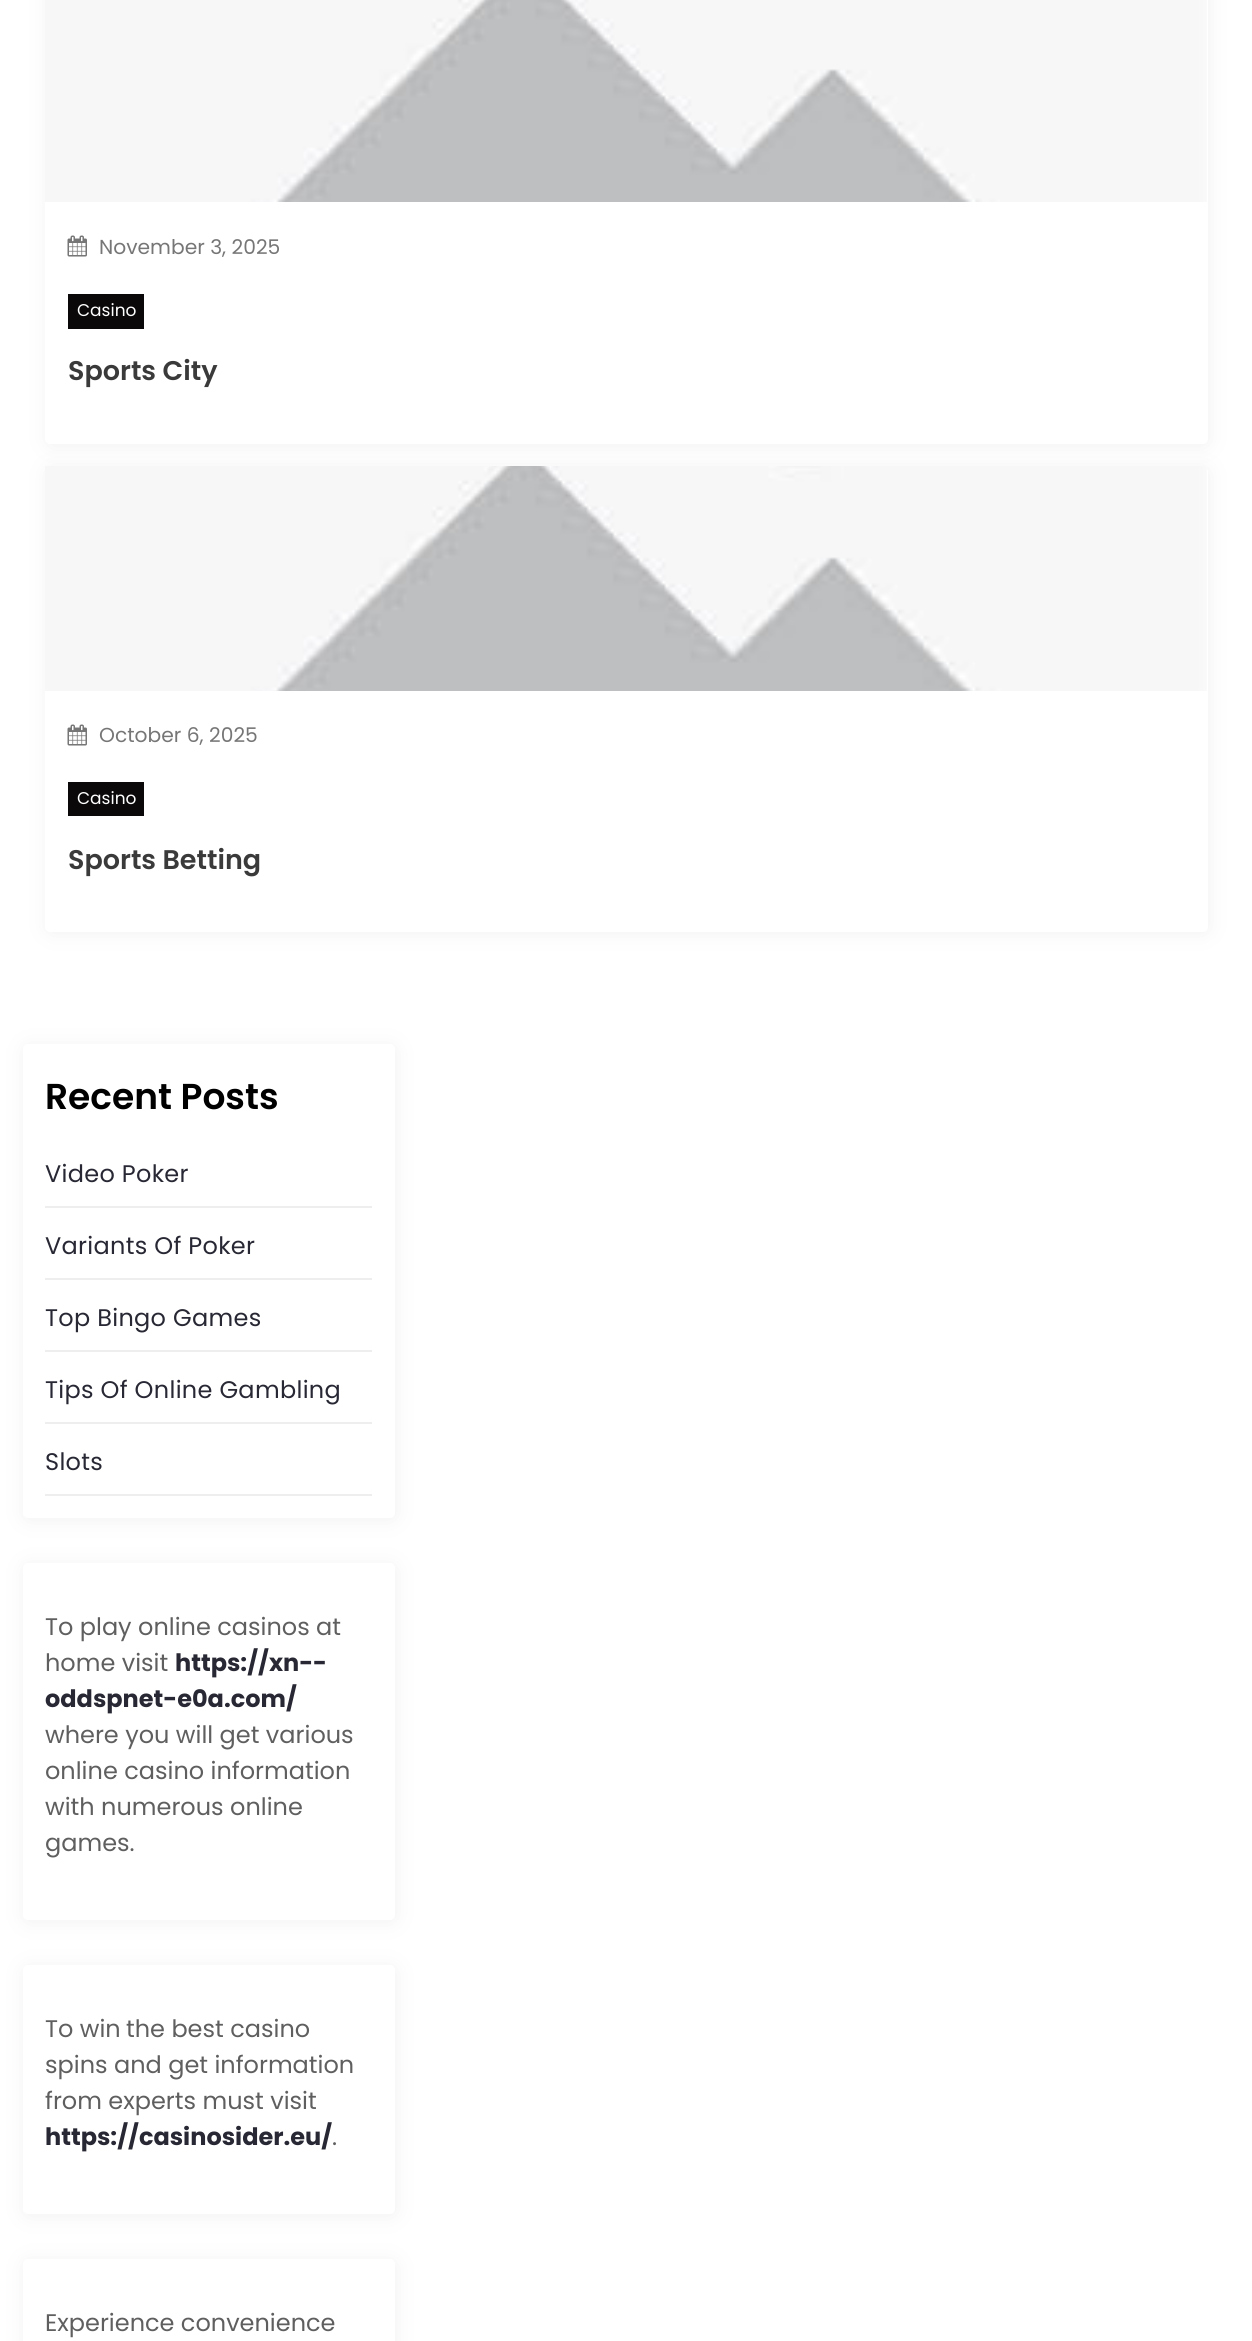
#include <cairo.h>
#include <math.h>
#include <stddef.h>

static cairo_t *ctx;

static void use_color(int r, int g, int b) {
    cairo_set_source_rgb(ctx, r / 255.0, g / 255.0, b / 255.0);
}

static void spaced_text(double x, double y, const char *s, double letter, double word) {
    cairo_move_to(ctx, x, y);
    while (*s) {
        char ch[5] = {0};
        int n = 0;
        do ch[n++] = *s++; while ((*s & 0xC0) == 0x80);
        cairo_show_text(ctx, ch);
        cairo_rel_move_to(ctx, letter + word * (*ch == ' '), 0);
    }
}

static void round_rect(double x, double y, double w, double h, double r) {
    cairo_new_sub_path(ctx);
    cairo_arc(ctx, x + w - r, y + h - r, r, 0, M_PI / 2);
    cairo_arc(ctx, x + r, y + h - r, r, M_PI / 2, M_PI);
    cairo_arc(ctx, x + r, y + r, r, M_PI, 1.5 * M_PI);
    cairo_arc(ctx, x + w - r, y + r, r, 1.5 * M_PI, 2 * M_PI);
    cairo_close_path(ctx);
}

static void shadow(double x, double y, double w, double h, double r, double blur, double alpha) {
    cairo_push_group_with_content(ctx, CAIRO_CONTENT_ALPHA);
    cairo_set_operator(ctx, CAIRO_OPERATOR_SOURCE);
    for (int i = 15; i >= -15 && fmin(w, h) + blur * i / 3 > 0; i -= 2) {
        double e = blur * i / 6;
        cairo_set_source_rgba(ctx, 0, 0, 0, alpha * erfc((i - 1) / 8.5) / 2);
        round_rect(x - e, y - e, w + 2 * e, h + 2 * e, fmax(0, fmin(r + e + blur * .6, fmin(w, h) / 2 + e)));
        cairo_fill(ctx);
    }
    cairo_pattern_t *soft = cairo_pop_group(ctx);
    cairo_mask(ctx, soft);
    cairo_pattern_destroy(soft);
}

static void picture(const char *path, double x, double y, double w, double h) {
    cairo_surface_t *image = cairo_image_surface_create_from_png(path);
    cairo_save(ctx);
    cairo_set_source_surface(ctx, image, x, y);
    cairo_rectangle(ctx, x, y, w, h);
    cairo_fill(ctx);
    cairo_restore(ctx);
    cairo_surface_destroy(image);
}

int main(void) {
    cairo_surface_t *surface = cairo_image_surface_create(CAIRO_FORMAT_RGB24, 1252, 2341);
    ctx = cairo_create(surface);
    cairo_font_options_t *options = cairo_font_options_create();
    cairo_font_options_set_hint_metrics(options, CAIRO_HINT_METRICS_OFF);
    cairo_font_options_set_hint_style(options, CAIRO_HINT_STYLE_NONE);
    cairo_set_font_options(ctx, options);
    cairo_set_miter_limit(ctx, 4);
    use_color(255, 255, 255);
    cairo_paint(ctx);
    use_color(242, 242, 242);
    shadow(47, -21, 1162, 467, 5, 10, 1);
    use_color(255, 255, 255);
    round_rect(45, -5, 1163, 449, 5);
    cairo_fill(ctx);
    picture("img1.png", 45, 0, 1162, 202);
    picture("img2.png", 67, 235, 20, 22);
    cairo_select_font_face(ctx, "Poppins", CAIRO_FONT_SLANT_NORMAL, CAIRO_FONT_WEIGHT_NORMAL);
    cairo_set_font_size(ctx, 20.25);
    use_color(118, 118, 118);
    cairo_move_to(ctx, 99, 254);
    cairo_show_text(ctx, "November 3, 2025");
    use_color(10, 8, 8);
    cairo_rectangle(ctx, 68, 294, 76, 35);
    cairo_fill(ctx);
    cairo_set_font_size(ctx, 17);
    use_color(255, 255, 255);
    cairo_move_to(ctx, 77, 316);
    cairo_show_text(ctx, "Casino");
    cairo_select_font_face(ctx, "Poppins SemiBold", CAIRO_FONT_SLANT_NORMAL, CAIRO_FONT_WEIGHT_NORMAL);
    cairo_set_font_size(ctx, 27);
    use_color(58, 58, 58);
    cairo_move_to(ctx, 68, 380);
    cairo_show_text(ctx, "Sports City");
    use_color(242, 242, 242);
    shadow(47, 468, 1162, 465, 5, 10, 1);
    use_color(255, 255, 255);
    round_rect(45, 467, 1163, 465, 5);
    cairo_fill(ctx);
    picture("img3.png", 45, 466, 1162, 225);
    picture("img2.png", 67, 724, 20, 22);
    cairo_select_font_face(ctx, "Poppins", CAIRO_FONT_SLANT_NORMAL, CAIRO_FONT_WEIGHT_NORMAL);
    cairo_set_font_size(ctx, 20.25);
    use_color(118, 118, 118);
    cairo_move_to(ctx, 99, 742);
    cairo_show_text(ctx, "October 6, 2025");
    use_color(10, 8, 8);
    cairo_rectangle(ctx, 68, 782, 76, 34);
    cairo_fill(ctx);
    cairo_set_font_size(ctx, 17);
    use_color(255, 255, 255);
    cairo_move_to(ctx, 77, 804);
    cairo_show_text(ctx, "Casino");
    cairo_select_font_face(ctx, "Poppins SemiBold", CAIRO_FONT_SLANT_NORMAL, CAIRO_FONT_WEIGHT_NORMAL);
    cairo_set_font_size(ctx, 27);
    use_color(58, 58, 58);
    cairo_move_to(ctx, 68, 869);
    cairo_show_text(ctx, "Sports Betting");
    use_color(242, 242, 242);
    shadow(24, 1046, 372, 474, 5, 10, 1);
    use_color(255, 255, 255);
    round_rect(23, 1044, 372, 474, 5);
    cairo_fill(ctx);
    cairo_set_font_size(ctx, 36);
    use_color(0, 0, 0);
    cairo_move_to(ctx, 45, 1109);
    cairo_show_text(ctx, "Recent Posts");
    use_color(238, 238, 238);
    cairo_rectangle(ctx, 45, 1206, 327, 2);
    cairo_fill(ctx);
    cairo_select_font_face(ctx, "Poppins", CAIRO_FONT_SLANT_NORMAL, CAIRO_FONT_WEIGHT_NORMAL);
    cairo_set_font_size(ctx, 24);
    use_color(40, 40, 53);
    spaced_text(45, 1182, "Video Poker", 0.3, 0);
    use_color(238, 238, 238);
    cairo_rectangle(ctx, 45, 1278, 327, 2);
    cairo_fill(ctx);
    use_color(40, 40, 53);
    spaced_text(45, 1254, "Variants Of Poker", 0.3, 0);
    use_color(238, 238, 238);
    cairo_rectangle(ctx, 45, 1350, 327, 2);
    cairo_fill(ctx);
    use_color(40, 40, 53);
    spaced_text(45, 1326, "Top Bingo Games", 0.3, 0);
    use_color(238, 238, 238);
    cairo_rectangle(ctx, 45, 1422, 327, 2);
    cairo_fill(ctx);
    use_color(40, 40, 53);
    spaced_text(45, 1398, "Tips Of Online Gambling", 0.3, 0);
    use_color(238, 238, 238);
    cairo_rectangle(ctx, 45, 1494, 327, 2);
    cairo_fill(ctx);
    use_color(40, 40, 53);
    spaced_text(45, 1470, "Slots", 0.3, 0);
    use_color(242, 242, 242);
    shadow(24, 1565, 372, 357, 5, 10, 1);
    use_color(255, 255, 255);
    round_rect(23, 1563, 372, 357, 5);
    cairo_fill(ctx);
    use_color(95, 95, 95);
    cairo_move_to(ctx, 45, 1635);
    cairo_show_text(ctx, "To play online casinos at");
    cairo_move_to(ctx, 45, 1671);
    cairo_show_text(ctx, "home visit");
    cairo_select_font_face(ctx, "Poppins", CAIRO_FONT_SLANT_NORMAL, CAIRO_FONT_WEIGHT_BOLD);
    use_color(40, 40, 53);
    cairo_move_to(ctx, 175, 1671);
    cairo_show_text(ctx, "https://xn--");
    cairo_move_to(ctx, 45, 1707);
    cairo_show_text(ctx, "oddspnet-e0a.com/");
    cairo_select_font_face(ctx, "Poppins", CAIRO_FONT_SLANT_NORMAL, CAIRO_FONT_WEIGHT_NORMAL);
    use_color(95, 95, 95);
    cairo_move_to(ctx, 45, 1743);
    cairo_show_text(ctx, "where you will get various");
    cairo_move_to(ctx, 45, 1779);
    cairo_show_text(ctx, "online casino information");
    cairo_move_to(ctx, 45, 1815);
    cairo_show_text(ctx, "with numerous online");
    cairo_move_to(ctx, 45, 1851);
    cairo_show_text(ctx, "games.");
    use_color(242, 242, 242);
    shadow(24, 1967, 372, 249, 5, 10, 1);
    use_color(255, 255, 255);
    round_rect(23, 1965, 372, 249, 5);
    cairo_fill(ctx);
    use_color(95, 95, 95);
    cairo_move_to(ctx, 45, 2037);
    cairo_show_text(ctx, "To win");
    cairo_move_to(ctx, 126, 2037);
    cairo_show_text(ctx, "the best casino");
    cairo_move_to(ctx, 45, 2073);
    cairo_show_text(ctx, "spins and get information");
    cairo_move_to(ctx, 45, 2109);
    cairo_show_text(ctx, "from experts must visit");
    cairo_select_font_face(ctx, "Poppins", CAIRO_FONT_SLANT_NORMAL, CAIRO_FONT_WEIGHT_BOLD);
    use_color(40, 40, 53);
    cairo_move_to(ctx, 45, 2145);
    cairo_show_text(ctx, "https://casinosider.eu/");
    cairo_select_font_face(ctx, "Poppins", CAIRO_FONT_SLANT_NORMAL, CAIRO_FONT_WEIGHT_NORMAL);
    use_color(95, 95, 95);
    cairo_move_to(ctx, 332, 2145);
    cairo_show_text(ctx, ".");
    use_color(242, 242, 242);
    shadow(24, 2261, 372, 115, 5, 10, 1);
    use_color(255, 255, 255);
    round_rect(23, 2259, 372, 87, 5);
    cairo_fill(ctx);
    use_color(95, 95, 95);
    cairo_move_to(ctx, 45, 2331);
    cairo_show_text(ctx, "Experience convenience");
    cairo_surface_write_to_png(surface, "result.png");
    cairo_font_options_destroy(options);
    cairo_destroy(ctx);
    cairo_surface_destroy(surface);
    return 0;
}
